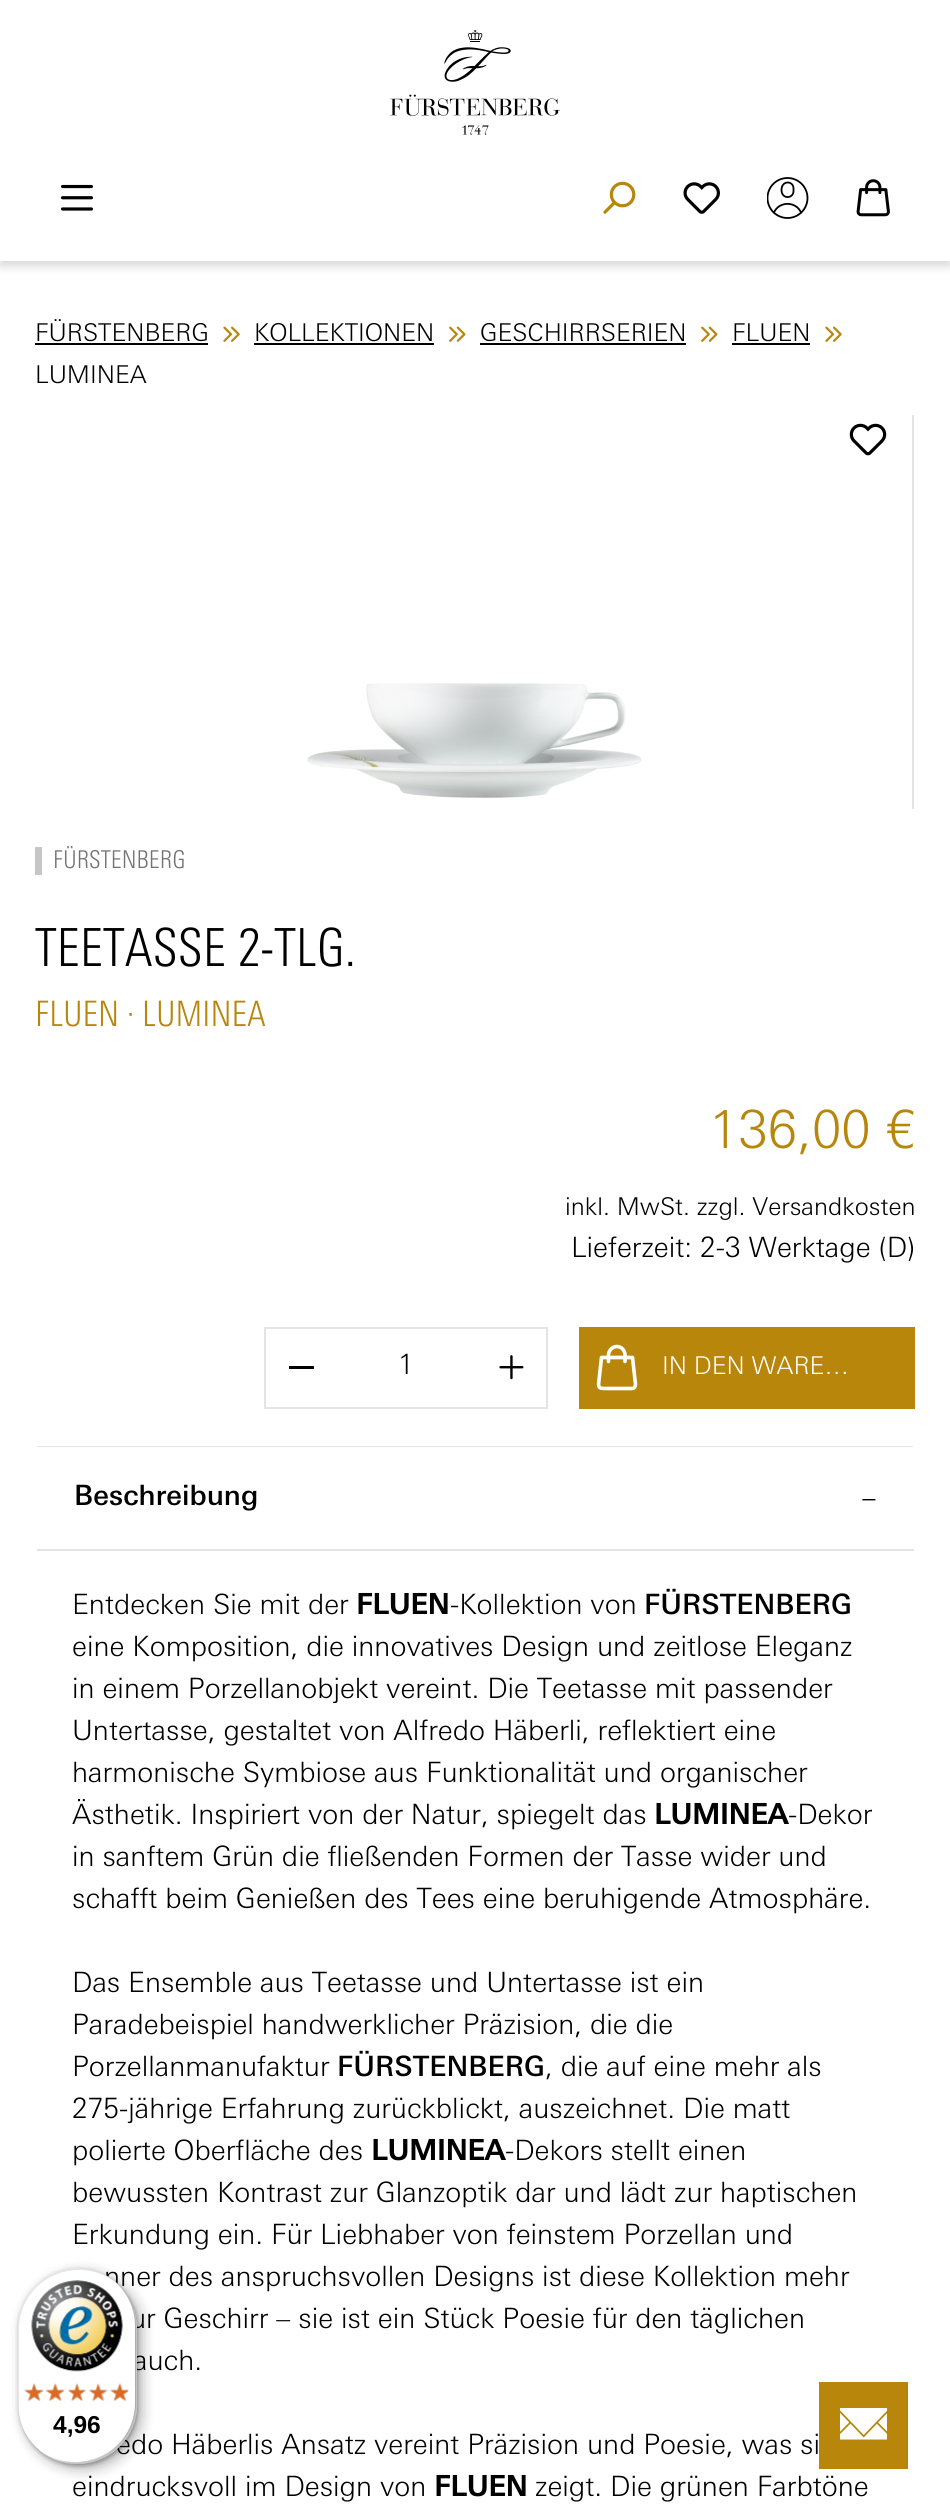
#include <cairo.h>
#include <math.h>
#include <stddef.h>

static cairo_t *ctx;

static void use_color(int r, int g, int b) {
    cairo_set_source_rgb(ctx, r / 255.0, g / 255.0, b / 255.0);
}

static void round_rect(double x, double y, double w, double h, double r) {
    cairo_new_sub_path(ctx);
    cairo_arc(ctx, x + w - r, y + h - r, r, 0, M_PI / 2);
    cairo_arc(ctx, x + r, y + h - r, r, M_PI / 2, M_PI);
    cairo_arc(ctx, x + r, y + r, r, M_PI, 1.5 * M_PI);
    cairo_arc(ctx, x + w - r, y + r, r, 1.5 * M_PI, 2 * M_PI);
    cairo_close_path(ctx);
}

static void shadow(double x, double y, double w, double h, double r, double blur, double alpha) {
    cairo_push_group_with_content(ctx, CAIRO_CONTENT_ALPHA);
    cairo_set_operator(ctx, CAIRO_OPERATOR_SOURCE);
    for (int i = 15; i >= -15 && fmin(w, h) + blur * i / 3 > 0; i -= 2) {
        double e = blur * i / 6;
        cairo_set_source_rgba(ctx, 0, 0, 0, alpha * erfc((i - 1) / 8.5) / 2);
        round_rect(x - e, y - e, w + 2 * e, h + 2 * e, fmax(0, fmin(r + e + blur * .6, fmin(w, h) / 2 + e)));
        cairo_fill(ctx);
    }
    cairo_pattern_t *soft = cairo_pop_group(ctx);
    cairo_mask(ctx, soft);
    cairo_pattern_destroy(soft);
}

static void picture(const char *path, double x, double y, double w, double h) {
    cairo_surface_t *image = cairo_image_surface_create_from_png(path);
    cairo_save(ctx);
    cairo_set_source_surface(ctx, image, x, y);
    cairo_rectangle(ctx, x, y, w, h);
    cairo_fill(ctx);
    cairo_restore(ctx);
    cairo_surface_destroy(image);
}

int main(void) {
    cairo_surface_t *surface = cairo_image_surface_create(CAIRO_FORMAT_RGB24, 950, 2515);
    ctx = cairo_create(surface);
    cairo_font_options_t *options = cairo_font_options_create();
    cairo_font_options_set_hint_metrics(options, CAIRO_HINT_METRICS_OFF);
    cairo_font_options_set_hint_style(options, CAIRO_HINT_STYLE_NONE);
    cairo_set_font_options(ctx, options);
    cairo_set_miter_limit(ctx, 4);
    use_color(255, 255, 255);
    cairo_paint(ctx);
    cairo_save(ctx);
    cairo_set_fill_rule(ctx, CAIRO_FILL_RULE_EVEN_ODD);
    cairo_new_path(ctx);
    cairo_move_to(ctx, 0, 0);
    cairo_line_to(ctx, 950, 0);
    cairo_line_to(ctx, 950, 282);
    cairo_line_to(ctx, 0, 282);
    cairo_close_path(ctx);
    cairo_move_to(ctx, 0, 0);
    cairo_line_to(ctx, 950, 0);
    cairo_line_to(ctx, 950, 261);
    cairo_line_to(ctx, 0, 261);
    cairo_close_path(ctx);
    cairo_clip(ctx);
    use_color(0, 0, 0);
    shadow(0, 5, 950, 261, 0, 5, 0.16);
    cairo_restore(ctx);
    picture("img1.png", 390, 30, 170, 105);
    picture("img2.png", 61, 184, 32, 27);
    picture("img3.png", 603, 181, 33, 33);
    picture("img4.png", 683, 182, 37, 32);
    cairo_new_path(ctx);
    cairo_move_to(ctx, 793.5, 191);
    cairo_curve_to(ctx, 793.5, 199, 781.5, 199.5, 781.5, 190);
    cairo_curve_to(ctx, 781.5, 180, 793.5, 180.5, 793.5, 188.5);
    cairo_close_path(ctx);
    use_color(0, 0, 0);
    cairo_set_line_width(ctx, 1.8);
    cairo_set_line_cap(ctx, CAIRO_LINE_CAP_ROUND);
    cairo_set_line_join(ctx, CAIRO_LINE_JOIN_ROUND);
    cairo_stroke(ctx);
    cairo_save(ctx);
    cairo_rectangle(ctx, 767, 177, 42, 42);
    cairo_clip(ctx);
    cairo_arc(ctx, 787.5, 198, 20, 0, 2 * M_PI);
    cairo_set_line_cap(ctx, CAIRO_LINE_CAP_BUTT);
    cairo_set_line_join(ctx, CAIRO_LINE_JOIN_MITER);
    cairo_stroke(ctx);
    cairo_restore(ctx);
    cairo_new_path(ctx);
    cairo_move_to(ctx, 774, 212.5);
    cairo_curve_to(ctx, 779, 201, 796, 201, 801, 212.5);
    cairo_stroke(ctx);
    picture("img5.png", 856, 179, 34, 38);
    cairo_select_font_face(ctx, "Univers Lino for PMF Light", CAIRO_FONT_SLANT_NORMAL, CAIRO_FONT_WEIGHT_NORMAL);
    cairo_set_font_size(ctx, 24.5);
    cairo_move_to(ctx, 35, 341);
    cairo_show_text(ctx, "FÜRSTENBERG");
    cairo_rectangle(ctx, 35, 343, 173, 2);
    cairo_fill(ctx);
    picture("img6.png", 223, 326, 17, 16);
    cairo_move_to(ctx, 254, 341);
    cairo_show_text(ctx, "KOLLEKTIONEN");
    cairo_rectangle(ctx, 254, 343, 180, 2);
    cairo_fill(ctx);
    picture("img7.png", 449, 326, 17, 16);
    cairo_move_to(ctx, 480, 341);
    cairo_show_text(ctx, "GESCHIRRSERIEN");
    cairo_rectangle(ctx, 480, 343, 206, 2);
    cairo_fill(ctx);
    picture("img7.png", 701, 326, 17, 16);
    cairo_move_to(ctx, 732, 341);
    cairo_show_text(ctx, "FLUEN");
    cairo_rectangle(ctx, 732, 343, 78, 2);
    cairo_fill(ctx);
    picture("img6.png", 825, 326, 17, 16);
    cairo_move_to(ctx, 35, 383);
    cairo_show_text(ctx, "LUMINEA");
    use_color(228, 228, 228);
    cairo_rectangle(ctx, 912, 415, 2, 394);
    cairo_fill(ctx);
    picture("img8.png", 307, 683, 335, 115);
    picture("img9.png", 849, 423, 38, 33);
    use_color(198, 198, 198);
    cairo_rectangle(ctx, 35, 847, 7, 28);
    cairo_fill(ctx);
    cairo_select_font_face(ctx, "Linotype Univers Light", CAIRO_FONT_SLANT_NORMAL, CAIRO_FONT_WEIGHT_NORMAL);
    use_color(115, 115, 115);
    cairo_move_to(ctx, 53, 868);
    cairo_show_text(ctx, "FÜRSTENBERG");
    cairo_set_font_size(ctx, 52.5);
    use_color(0, 0, 0);
    cairo_move_to(ctx, 35, 966);
    cairo_show_text(ctx, "TEETASSE 2-TLG.");
    cairo_set_font_size(ctx, 35);
    use_color(184, 134, 11);
    cairo_move_to(ctx, 35, 1026);
    cairo_show_text(ctx, "FLUEN · LUMINEA");
    cairo_select_font_face(ctx, "Univers Lino for PMF Light", CAIRO_FONT_SLANT_NORMAL, CAIRO_FONT_WEIGHT_NORMAL);
    cairo_set_font_size(ctx, 52.5);
    cairo_move_to(ctx, 709, 1148);
    cairo_show_text(ctx, "136,00 €");
    cairo_set_font_size(ctx, 24.5);
    use_color(0, 0, 0);
    cairo_move_to(ctx, 565, 1215);
    cairo_show_text(ctx, "inkl. MwSt. zzgl. Versandkosten");
    cairo_set_font_size(ctx, 28);
    cairo_move_to(ctx, 571, 1257);
    cairo_show_text(ctx, "Lieferzeit: 2-3 Werktage (D)");
    use_color(228, 228, 228);
    cairo_rectangle(ctx, 264, 1327, 284, 2);
    cairo_fill(ctx);
    cairo_rectangle(ctx, 264, 1407, 214, 2);
    cairo_fill(ctx);
    cairo_rectangle(ctx, 264, 1327, 2, 82);
    cairo_fill(ctx);
    use_color(0, 0, 0);
    cairo_rectangle(ctx, 289, 1366, 25, 3);
    cairo_fill(ctx);
    cairo_move_to(ctx, 398, 1374);
    cairo_show_text(ctx, "1");
    use_color(228, 228, 228);
    cairo_rectangle(ctx, 546, 1327, 2, 82);
    cairo_fill(ctx);
    cairo_rectangle(ctx, 476, 1407, 72, 2);
    cairo_fill(ctx);
    picture("img10.png", 499, 1355, 25, 25);
    use_color(184, 134, 11);
    cairo_rectangle(ctx, 579, 1327, 336, 82);
    cairo_fill(ctx);
    cairo_new_path(ctx);
    cairo_move_to(ctx, 632, 1388.5);
    cairo_line_to(ctx, 607, 1388.5);
    cairo_curve_to(ctx, 598.5, 1388.5, 598, 1388.5, 599, 1380);
    cairo_line_to(ctx, 601.5, 1357.5);
    cairo_line_to(ctx, 632.5, 1357.5);
    cairo_line_to(ctx, 635, 1380);
    cairo_curve_to(ctx, 635.5, 1383, 636.5, 1388.5, 632, 1388.5);
    cairo_close_path(ctx);
    cairo_move_to(ctx, 608.5, 1361.5);
    cairo_line_to(ctx, 608.5, 1355);
    cairo_curve_to(ctx, 608.5, 1350.5, 612.5, 1346.5, 617, 1346.5);
    cairo_curve_to(ctx, 621.5, 1346.5, 625, 1350.5, 625, 1355);
    cairo_line_to(ctx, 625, 1361.5);
    use_color(255, 255, 255);
    cairo_set_line_width(ctx, 3.6);
    cairo_stroke(ctx);
    cairo_set_font_size(ctx, 24.5);
    cairo_move_to(ctx, 662, 1374);
    cairo_show_text(ctx, "IN DEN WARE…");
    use_color(228, 228, 228);
    cairo_new_path(ctx);
    cairo_move_to(ctx, 37, 1446);
    cairo_line_to(ctx, 914, 1446);
    cairo_line_to(ctx, 912, 1447);
    cairo_line_to(ctx, 38, 1447);
    cairo_close_path(ctx);
    cairo_fill(ctx);
    cairo_select_font_face(ctx, "Univers Lino for PMF Medium", CAIRO_FONT_SLANT_NORMAL, CAIRO_FONT_WEIGHT_NORMAL);
    cairo_set_font_size(ctx, 28);
    use_color(0, 0, 0);
    cairo_move_to(ctx, 74, 1505);
    cairo_show_text(ctx, "Beschreibung");
    cairo_select_font_face(ctx, "Liberation Serif", CAIRO_FONT_SLANT_NORMAL, CAIRO_FONT_WEIGHT_NORMAL);
    cairo_move_to(ctx, 861, 1509);
    cairo_show_text(ctx, "−");
    use_color(228, 228, 228);
    cairo_rectangle(ctx, 37, 1549, 877, 2);
    cairo_fill(ctx);
    cairo_select_font_face(ctx, "Univers Lino for PMF Light", CAIRO_FONT_SLANT_NORMAL, CAIRO_FONT_WEIGHT_NORMAL);
    use_color(0, 0, 0);
    cairo_move_to(ctx, 72, 1614);
    cairo_show_text(ctx, "Entdecken Sie mit der");
    cairo_select_font_face(ctx, "Univers Lino for PMF", CAIRO_FONT_SLANT_NORMAL, CAIRO_FONT_WEIGHT_BOLD);
    cairo_move_to(ctx, 356, 1614);
    cairo_show_text(ctx, "FLUEN");
    cairo_select_font_face(ctx, "Univers Lino for PMF Light", CAIRO_FONT_SLANT_NORMAL, CAIRO_FONT_WEIGHT_NORMAL);
    cairo_move_to(ctx, 450, 1614);
    cairo_show_text(ctx, "-Kollektion von");
    cairo_select_font_face(ctx, "Univers Lino for PMF Medium", CAIRO_FONT_SLANT_NORMAL, CAIRO_FONT_WEIGHT_NORMAL);
    cairo_move_to(ctx, 644, 1614);
    cairo_show_text(ctx, "FÜRSTENBERG");
    cairo_select_font_face(ctx, "Univers Lino for PMF Light", CAIRO_FONT_SLANT_NORMAL, CAIRO_FONT_WEIGHT_NORMAL);
    cairo_move_to(ctx, 72, 1656);
    cairo_show_text(ctx, "eine Komposition, die innovatives Design und zeitlose Eleganz");
    cairo_move_to(ctx, 72, 1698);
    cairo_show_text(ctx, "in einem Porzellanobjekt vereint. Die Teetasse mit passender");
    cairo_move_to(ctx, 72, 1740);
    cairo_show_text(ctx, "Untertasse, gestaltet von Alfredo Häberli, reflektiert eine");
    cairo_move_to(ctx, 72, 1782);
    cairo_show_text(ctx, "harmonische Symbiose aus Funktionalität und organischer");
    cairo_move_to(ctx, 72, 1824);
    cairo_show_text(ctx, "Ästhetik. Inspiriert von der Natur, spiegelt das");
    cairo_select_font_face(ctx, "Univers Lino for PMF", CAIRO_FONT_SLANT_NORMAL, CAIRO_FONT_WEIGHT_BOLD);
    cairo_move_to(ctx, 654, 1824);
    cairo_show_text(ctx, "LUMINEA");
    cairo_select_font_face(ctx, "Univers Lino for PMF Light", CAIRO_FONT_SLANT_NORMAL, CAIRO_FONT_WEIGHT_NORMAL);
    cairo_move_to(ctx, 788, 1824);
    cairo_show_text(ctx, "-Dekor");
    cairo_move_to(ctx, 72, 1866);
    cairo_show_text(ctx, "in sanftem Grün die fließenden Formen der Tasse wider und");
    cairo_move_to(ctx, 72, 1908);
    cairo_show_text(ctx, "schafft beim Genießen des Tees eine beruhigende Atmosphäre.");
    cairo_move_to(ctx, 72, 1992);
    cairo_show_text(ctx, "Das Ensemble aus Teetasse und Untertasse ist ein");
    cairo_move_to(ctx, 72, 2034);
    cairo_show_text(ctx, "Paradebeispiel handwerklicher Präzision, die die");
    cairo_move_to(ctx, 72, 2076);
    cairo_show_text(ctx, "Porzellanmanufaktur");
    cairo_select_font_face(ctx, "Univers Lino for PMF Medium", CAIRO_FONT_SLANT_NORMAL, CAIRO_FONT_WEIGHT_NORMAL);
    cairo_move_to(ctx, 337, 2076);
    cairo_show_text(ctx, "FÜRSTENBERG");
    cairo_select_font_face(ctx, "Univers Lino for PMF Light", CAIRO_FONT_SLANT_NORMAL, CAIRO_FONT_WEIGHT_NORMAL);
    cairo_move_to(ctx, 545, 2076);
    cairo_show_text(ctx, ", die auf eine mehr als");
    cairo_move_to(ctx, 72, 2118);
    cairo_show_text(ctx, "275-jährige Erfahrung zurückblickt, auszeichnet. Die matt");
    cairo_move_to(ctx, 72, 2160);
    cairo_show_text(ctx, "polierte Oberfläche des");
    cairo_select_font_face(ctx, "Univers Lino for PMF", CAIRO_FONT_SLANT_NORMAL, CAIRO_FONT_WEIGHT_BOLD);
    cairo_move_to(ctx, 371, 2160);
    cairo_show_text(ctx, "LUMINEA");
    cairo_select_font_face(ctx, "Univers Lino for PMF Light", CAIRO_FONT_SLANT_NORMAL, CAIRO_FONT_WEIGHT_NORMAL);
    cairo_move_to(ctx, 505, 2160);
    cairo_show_text(ctx, "-Dekors stellt einen");
    cairo_move_to(ctx, 72, 2202);
    cairo_show_text(ctx, "bewussten Kontrast zur Glanzoptik dar und lädt zur haptischen");
    cairo_move_to(ctx, 72, 2244);
    cairo_show_text(ctx, "Erkundung ein. Für Liebhaber von feinstem Porzellan und");
    cairo_move_to(ctx, 104, 2286);
    cairo_show_text(ctx, "nner des anspruchsvollen Designs ist diese Kollektion mehr");
    cairo_move_to(ctx, 130, 2328);
    cairo_show_text(ctx, "ur Geschirr – sie ist ein Stück Poesie für den täglichen");
    cairo_move_to(ctx, 133, 2370);
    cairo_show_text(ctx, "auch.");
    cairo_move_to(ctx, 116, 2454);
    cairo_show_text(ctx, "edo Häberlis Ansatz vereint Präzision und Poesie, was si");
    cairo_move_to(ctx, 72, 2496);
    cairo_show_text(ctx, "eindrucksvoll im Design von");
    cairo_select_font_face(ctx, "Univers Lino for PMF", CAIRO_FONT_SLANT_NORMAL, CAIRO_FONT_WEIGHT_BOLD);
    cairo_move_to(ctx, 434, 2496);
    cairo_show_text(ctx, "FLUEN");
    cairo_select_font_face(ctx, "Univers Lino for PMF Light", CAIRO_FONT_SLANT_NORMAL, CAIRO_FONT_WEIGHT_NORMAL);
    cairo_move_to(ctx, 535, 2496);
    cairo_show_text(ctx, "zeigt. Die grünen Farbtöne");
    use_color(0, 0, 0);
    shadow(23, 2273, 119, 196, 59.5, 7, 0.15);
    shadow(19, 2270, 119, 196, 59.5, 2, 0.15);
    cairo_set_source_rgba(ctx, 0, 0, 0, 0.1);
    cairo_new_path(ctx);
    cairo_move_to(ctx, 79, 2270);
    cairo_curve_to(ctx, 98, 2270, 115, 2279, 126, 2292);
    cairo_curve_to(ctx, 115, 2278, 97, 2268, 78, 2268);
    cairo_curve_to(ctx, 45, 2268, 18, 2295, 18, 2328);
    cairo_line_to(ctx, 18, 2404);
    cairo_curve_to(ctx, 18, 2417, 22, 2428, 28, 2438);
    cairo_curve_to(ctx, 22, 2429, 19, 2418, 19, 2406);
    cairo_line_to(ctx, 19, 2329);
    cairo_curve_to(ctx, 19, 2296, 46, 2270, 79, 2270);
    cairo_close_path(ctx);
    cairo_fill(ctx);
    cairo_set_source_rgba(ctx, 0.196, 0.196, 0.196, 0.2);
    cairo_new_path(ctx);
    cairo_move_to(ctx, 44, 2454);
    cairo_curve_to(ctx, 54, 2460, 65, 2464, 78, 2464);
    cairo_curve_to(ctx, 110, 2464, 137, 2437, 137, 2404);
    cairo_line_to(ctx, 137, 2328);
    cairo_curve_to(ctx, 137, 2305, 125, 2286, 107, 2276);
    cairo_curve_to(ctx, 124, 2286, 135, 2305, 135, 2326);
    cairo_line_to(ctx, 135, 2403);
    cairo_curve_to(ctx, 135, 2436, 109, 2463, 76, 2463);
    cairo_curve_to(ctx, 64, 2463, 53, 2460, 44, 2454);
    cairo_close_path(ctx);
    cairo_fill(ctx);
    cairo_set_source_rgba(ctx, 1, 1, 1, 0.3);
    cairo_new_path(ctx);
    cairo_move_to(ctx, 40, 2451);
    cairo_curve_to(ctx, 50, 2459, 63, 2464, 78, 2464);
    cairo_curve_to(ctx, 110, 2464, 137, 2437, 137, 2404);
    cairo_line_to(ctx, 137, 2328);
    cairo_curve_to(ctx, 137, 2307, 126, 2289, 110, 2278);
    cairo_curve_to(ctx, 126, 2289, 136, 2307, 136, 2327);
    cairo_line_to(ctx, 136, 2404);
    cairo_curve_to(ctx, 136, 2436, 109, 2463, 76, 2463);
    cairo_curve_to(ctx, 62, 2463, 50, 2458, 40, 2451);
    cairo_close_path(ctx);
    cairo_fill(ctx);
    use_color(184, 134, 11);
    cairo_rectangle(ctx, 819, 2382, 89, 87);
    cairo_fill(ctx);
    picture("img11.png", 840, 2408, 47, 32);
    use_color(0, 0, 0);
    shadow(23, 2273, 119, 196, 59.5, 7, 0.15);
    shadow(19, 2270, 119, 196, 59.5, 2, 0.15);
    use_color(255, 255, 255);
    round_rect(18, 2268, 119, 196, 59.5);
    cairo_fill(ctx);
    cairo_set_source_rgba(ctx, 0, 0, 0, 0.1);
    cairo_new_path(ctx);
    cairo_move_to(ctx, 79, 2270);
    cairo_curve_to(ctx, 98, 2270, 115, 2279, 126, 2292);
    cairo_curve_to(ctx, 115, 2278, 97, 2268, 78, 2268);
    cairo_curve_to(ctx, 45, 2268, 18, 2295, 18, 2328);
    cairo_line_to(ctx, 18, 2404);
    cairo_curve_to(ctx, 18, 2417, 22, 2428, 28, 2438);
    cairo_curve_to(ctx, 22, 2429, 19, 2418, 19, 2406);
    cairo_line_to(ctx, 19, 2329);
    cairo_curve_to(ctx, 19, 2296, 46, 2270, 79, 2270);
    cairo_close_path(ctx);
    cairo_fill(ctx);
    cairo_set_source_rgba(ctx, 0, 0, 0, 0.2);
    cairo_new_path(ctx);
    cairo_move_to(ctx, 41, 2451);
    cairo_curve_to(ctx, 51, 2459, 64, 2464, 78, 2464);
    cairo_curve_to(ctx, 110, 2464, 137, 2437, 137, 2404);
    cairo_line_to(ctx, 137, 2328);
    cairo_curve_to(ctx, 137, 2308, 128, 2292, 114, 2281);
    cairo_curve_to(ctx, 127, 2292, 135, 2308, 135, 2326);
    cairo_line_to(ctx, 135, 2403);
    cairo_curve_to(ctx, 135, 2436, 108, 2462, 75, 2462);
    cairo_curve_to(ctx, 62, 2462, 50, 2458, 41, 2451);
    cairo_close_path(ctx);
    cairo_fill(ctx);
    cairo_set_source_rgba(ctx, 0.196, 0.196, 0.196, 0.2);
    cairo_new_path(ctx);
    cairo_move_to(ctx, 44, 2454);
    cairo_curve_to(ctx, 54, 2460, 65, 2464, 78, 2464);
    cairo_curve_to(ctx, 110, 2464, 137, 2437, 137, 2404);
    cairo_line_to(ctx, 137, 2328);
    cairo_curve_to(ctx, 137, 2305, 125, 2286, 107, 2276);
    cairo_curve_to(ctx, 124, 2286, 135, 2305, 135, 2326);
    cairo_line_to(ctx, 135, 2403);
    cairo_curve_to(ctx, 135, 2436, 109, 2463, 76, 2463);
    cairo_curve_to(ctx, 64, 2463, 53, 2460, 44, 2454);
    cairo_close_path(ctx);
    cairo_fill(ctx);
    cairo_set_source_rgba(ctx, 1, 1, 1, 0.3);
    cairo_new_path(ctx);
    cairo_move_to(ctx, 40, 2451);
    cairo_curve_to(ctx, 50, 2459, 63, 2464, 78, 2464);
    cairo_curve_to(ctx, 110, 2464, 137, 2437, 137, 2404);
    cairo_line_to(ctx, 137, 2328);
    cairo_curve_to(ctx, 137, 2307, 126, 2289, 110, 2278);
    cairo_curve_to(ctx, 126, 2289, 136, 2307, 136, 2327);
    cairo_line_to(ctx, 136, 2404);
    cairo_curve_to(ctx, 136, 2436, 109, 2463, 76, 2463);
    cairo_curve_to(ctx, 62, 2463, 50, 2458, 40, 2451);
    cairo_close_path(ctx);
    cairo_fill(ctx);
    picture("img12.png", 31, 2280, 92, 92);
    picture("img13.png", 24, 2383, 20, 18);
    picture("img14.png", 47, 2383, 18, 18);
    picture("img14.png", 68, 2383, 18, 18);
    picture("img15.png", 89, 2383, 20, 18);
    picture("img15.png", 110, 2383, 20, 18);
    picture("img16.png", 24, 2383, 20, 18);
    picture("img17.png", 45, 2383, 20, 18);
    picture("img18.png", 68, 2383, 18, 18);
    picture("img19.png", 89, 2383, 18, 18);
    picture("img20.png", 110, 2383, 18, 18);
    cairo_select_font_face(ctx, "Liberation Sans", CAIRO_FONT_SLANT_NORMAL, CAIRO_FONT_WEIGHT_BOLD);
    cairo_set_font_size(ctx, 24.5);
    use_color(0, 0, 0);
    cairo_move_to(ctx, 53, 2433);
    cairo_show_text(ctx, "4,96");
    cairo_surface_write_to_png(surface, "result.png");
    cairo_font_options_destroy(options);
    cairo_destroy(ctx);
    cairo_surface_destroy(surface);
    return 0;
}
